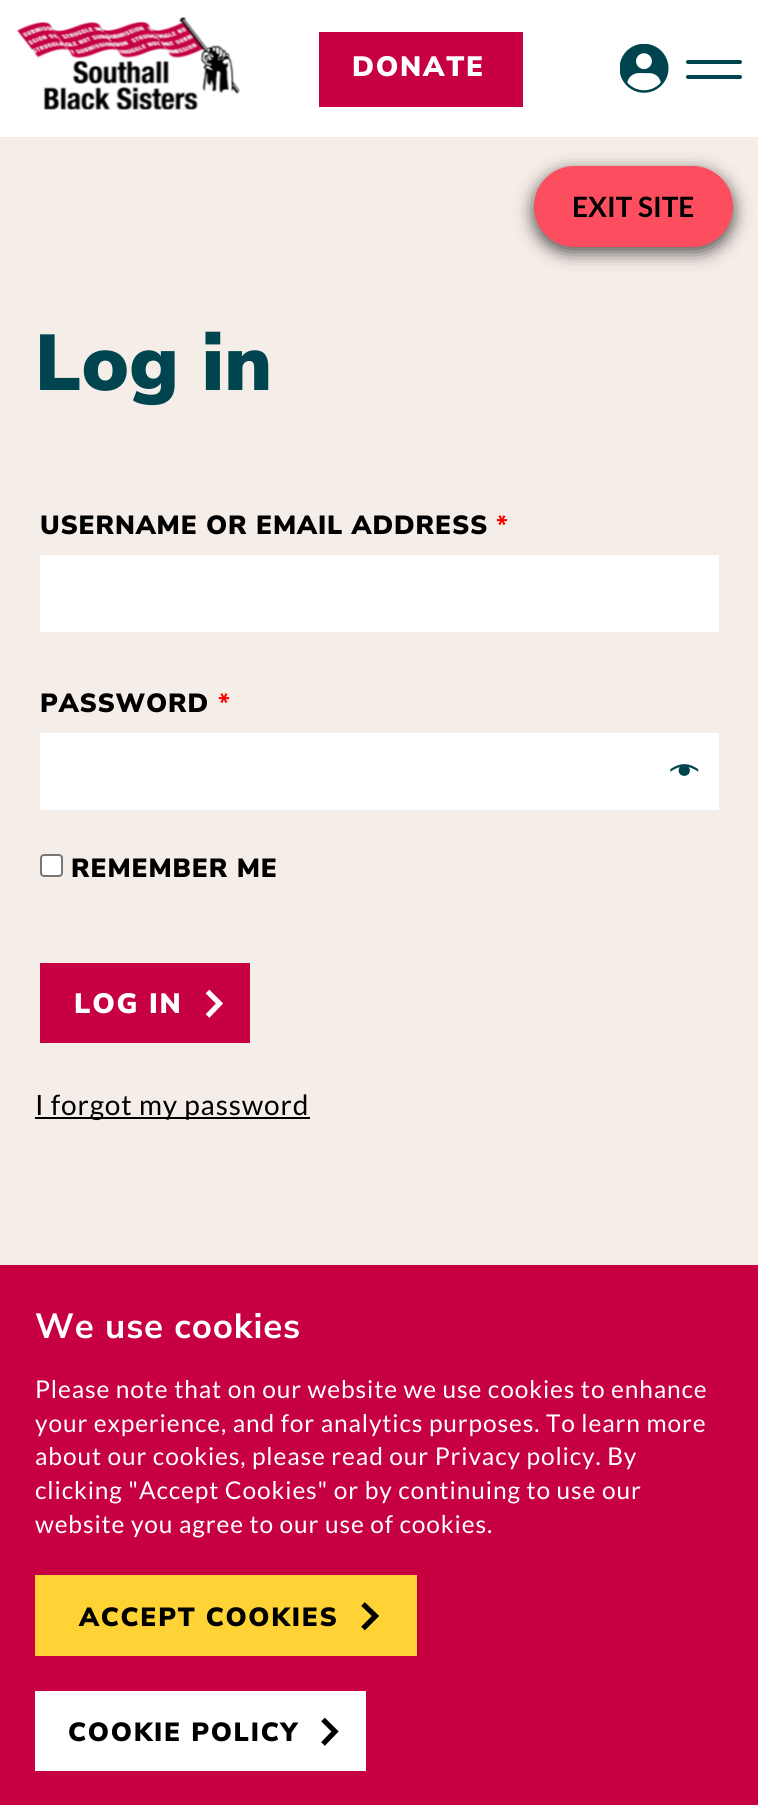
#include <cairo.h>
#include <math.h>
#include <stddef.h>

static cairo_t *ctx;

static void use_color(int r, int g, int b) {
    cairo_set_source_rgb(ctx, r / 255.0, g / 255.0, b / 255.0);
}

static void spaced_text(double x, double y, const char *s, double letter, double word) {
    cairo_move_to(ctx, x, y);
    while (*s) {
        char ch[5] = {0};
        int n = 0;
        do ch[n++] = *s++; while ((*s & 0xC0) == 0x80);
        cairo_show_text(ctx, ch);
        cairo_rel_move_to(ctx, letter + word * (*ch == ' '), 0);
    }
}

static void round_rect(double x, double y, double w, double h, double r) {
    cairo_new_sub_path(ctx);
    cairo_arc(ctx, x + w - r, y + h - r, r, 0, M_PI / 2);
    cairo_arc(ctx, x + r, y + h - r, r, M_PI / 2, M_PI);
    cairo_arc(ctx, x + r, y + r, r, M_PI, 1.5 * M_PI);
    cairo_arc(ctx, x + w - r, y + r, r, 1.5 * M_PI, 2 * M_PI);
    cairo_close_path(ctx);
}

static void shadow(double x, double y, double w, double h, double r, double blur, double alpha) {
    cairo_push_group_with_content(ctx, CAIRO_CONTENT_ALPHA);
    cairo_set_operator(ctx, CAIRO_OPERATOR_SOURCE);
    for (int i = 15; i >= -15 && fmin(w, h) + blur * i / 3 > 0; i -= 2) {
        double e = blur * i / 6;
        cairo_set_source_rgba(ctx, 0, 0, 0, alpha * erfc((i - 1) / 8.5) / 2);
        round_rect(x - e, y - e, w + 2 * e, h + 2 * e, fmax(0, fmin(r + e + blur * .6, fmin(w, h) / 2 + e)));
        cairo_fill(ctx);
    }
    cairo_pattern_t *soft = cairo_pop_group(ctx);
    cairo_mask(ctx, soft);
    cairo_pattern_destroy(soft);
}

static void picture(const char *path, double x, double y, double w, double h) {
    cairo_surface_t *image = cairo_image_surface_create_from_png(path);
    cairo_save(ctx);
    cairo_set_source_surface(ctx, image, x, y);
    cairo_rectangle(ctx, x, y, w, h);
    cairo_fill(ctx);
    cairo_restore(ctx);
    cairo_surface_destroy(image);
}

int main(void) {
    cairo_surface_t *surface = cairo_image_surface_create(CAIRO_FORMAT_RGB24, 758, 1805);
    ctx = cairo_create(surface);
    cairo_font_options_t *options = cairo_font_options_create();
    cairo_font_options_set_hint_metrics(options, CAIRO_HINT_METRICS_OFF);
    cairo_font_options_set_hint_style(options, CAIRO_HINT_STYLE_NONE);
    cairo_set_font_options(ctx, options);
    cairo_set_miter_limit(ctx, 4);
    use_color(245, 237, 232);
    cairo_paint(ctx);
    use_color(255, 255, 255);
    cairo_rectangle(ctx, 0, 0, 758, 137);
    cairo_fill(ctx);
    picture("img1.png", 17, 17, 223, 93);
    use_color(199, 0, 65);
    cairo_rectangle(ctx, 319, 32, 204, 75);
    cairo_fill(ctx);
    cairo_select_font_face(ctx, "Nunito Sans Black", CAIRO_FONT_SLANT_NORMAL, CAIRO_FONT_WEIGHT_NORMAL);
    cairo_set_font_size(ctx, 28);
    use_color(255, 255, 255);
    spaced_text(352, 76, "DONATE", 1.75, 0);
    picture("img2.png", 620, 44, 49, 49);
    use_color(0, 68, 80);
    round_rect(686, 60, 56, 4, 2);
    cairo_fill(ctx);
    round_rect(686, 75, 56, 4, 2);
    cairo_fill(ctx);
    use_color(0, 0, 0);
    shadow(534, 172, 199, 80, 40, 9, 0.7);
    use_color(252, 78, 95);
    round_rect(534, 166, 199, 81, 40.5);
    cairo_fill(ctx);
    cairo_select_font_face(ctx, "Lato", CAIRO_FONT_SLANT_NORMAL, CAIRO_FONT_WEIGHT_BOLD);
    use_color(0, 0, 0);
    cairo_move_to(ctx, 572, 217);
    cairo_show_text(ctx, "EXIT SITE");
    cairo_select_font_face(ctx, "Nunito Sans Black", CAIRO_FONT_SLANT_NORMAL, CAIRO_FONT_WEIGHT_NORMAL);
    cairo_set_font_size(ctx, 79);
    use_color(0, 68, 80);
    spaced_text(35, 390, "Log in", 0.25, 0);
    cairo_set_font_size(ctx, 26.25);
    use_color(0, 0, 0);
    spaced_text(40, 534, "USERNAME OR EMAIL ADDRESS", 0.88, 0);
    cairo_select_font_face(ctx, "Nunito Sans", CAIRO_FONT_SLANT_NORMAL, CAIRO_FONT_WEIGHT_BOLD);
    use_color(255, 0, 0);
    spaced_text(496, 534, "*", 0.88, 0);
    use_color(255, 255, 255);
    cairo_rectangle(ctx, 40, 555, 679, 77);
    cairo_fill(ctx);
    cairo_select_font_face(ctx, "Nunito Sans Black", CAIRO_FONT_SLANT_NORMAL, CAIRO_FONT_WEIGHT_NORMAL);
    use_color(0, 0, 0);
    spaced_text(40, 712, "PASSWORD", 0.88, 0);
    cairo_select_font_face(ctx, "Nunito Sans", CAIRO_FONT_SLANT_NORMAL, CAIRO_FONT_WEIGHT_BOLD);
    use_color(255, 0, 0);
    spaced_text(218, 712, "*", 0.88, 0);
    use_color(255, 255, 255);
    cairo_rectangle(ctx, 40, 733, 679, 77);
    cairo_fill(ctx);
    picture("img3.png", 670, 764, 29, 12);
    round_rect(41, 855, 21, 21, 3);
    cairo_fill_preserve(ctx);
    use_color(118, 118, 118);
    cairo_stroke(ctx);
    cairo_select_font_face(ctx, "Nunito Sans Black", CAIRO_FONT_SLANT_NORMAL, CAIRO_FONT_WEIGHT_NORMAL);
    use_color(0, 0, 0);
    spaced_text(71, 877, "REMEMBER ME", 0.88, 0);
    use_color(199, 0, 65);
    cairo_rectangle(ctx, 40, 963, 210, 80);
    cairo_fill(ctx);
    cairo_set_font_size(ctx, 28);
    use_color(255, 255, 255);
    spaced_text(74, 1013, "LOG IN", 1.75, 0);
    cairo_new_path(ctx);
    cairo_move_to(ctx, 207.5, 991.5);
    cairo_line_to(ctx, 219.5, 1003.5);
    cairo_line_to(ctx, 207.5, 1016);
    cairo_set_line_width(ctx, 5.2);
    cairo_stroke(ctx);
    use_color(0, 0, 0);
    cairo_rectangle(ctx, 35, 1117, 275, 2);
    cairo_fill(ctx);
    cairo_select_font_face(ctx, "Lato", CAIRO_FONT_SLANT_NORMAL, CAIRO_FONT_WEIGHT_NORMAL);
    spaced_text(35, 1115, "I forgot my password", 0.88, 0);
    use_color(199, 0, 65);
    cairo_rectangle(ctx, 0, 1265, 758, 540);
    cairo_fill(ctx);
    cairo_select_font_face(ctx, "Nunito Sans", CAIRO_FONT_SLANT_NORMAL, CAIRO_FONT_WEIGHT_BOLD);
    cairo_set_font_size(ctx, 35);
    use_color(255, 255, 255);
    spaced_text(35, 1338, "We use cookies", 0.88, 0);
    cairo_select_font_face(ctx, "Lato", CAIRO_FONT_SLANT_NORMAL, CAIRO_FONT_WEIGHT_NORMAL);
    cairo_set_font_size(ctx, 24.5);
    spaced_text(35, 1398, "Please note that on our website we use cookies to enhance", 0.88, 0);
    spaced_text(35, 1432, "your experience, and for analytics purposes. To learn more", 0.88, 0);
    spaced_text(35, 1465, "about our cookies, please read our Privacy policy. By", 0.88, 0);
    spaced_text(35, 1499, "clicking \"Accept Cookies\" or by continuing to use our", 0.88, 0);
    spaced_text(35, 1533, "website you agree to our use of cookies.", 0.88, 0);
    use_color(255, 211, 53);
    cairo_rectangle(ctx, 35, 1575, 382, 81);
    cairo_fill(ctx);
    cairo_select_font_face(ctx, "Nunito Sans Black", CAIRO_FONT_SLANT_NORMAL, CAIRO_FONT_WEIGHT_NORMAL);
    cairo_set_font_size(ctx, 26.25);
    use_color(0, 0, 0);
    spaced_text(79, 1626, "ACCEPT COOKIES", 1.75, 0);
    cairo_new_path(ctx);
    cairo_move_to(ctx, 363, 1604);
    cairo_line_to(ctx, 375.5, 1616);
    cairo_line_to(ctx, 363, 1628.5);
    cairo_stroke(ctx);
    use_color(255, 255, 255);
    cairo_rectangle(ctx, 35, 1691, 331, 80);
    cairo_fill(ctx);
    use_color(0, 0, 0);
    spaced_text(68, 1741, "COOKIE POLICY", 1.75, 0);
    cairo_new_path(ctx);
    cairo_move_to(ctx, 323, 1719.5);
    cairo_line_to(ctx, 335, 1731.5);
    cairo_line_to(ctx, 323, 1744);
    cairo_stroke(ctx);
    cairo_surface_write_to_png(surface, "result.png");
    cairo_font_options_destroy(options);
    cairo_destroy(ctx);
    cairo_surface_destroy(surface);
    return 0;
}
